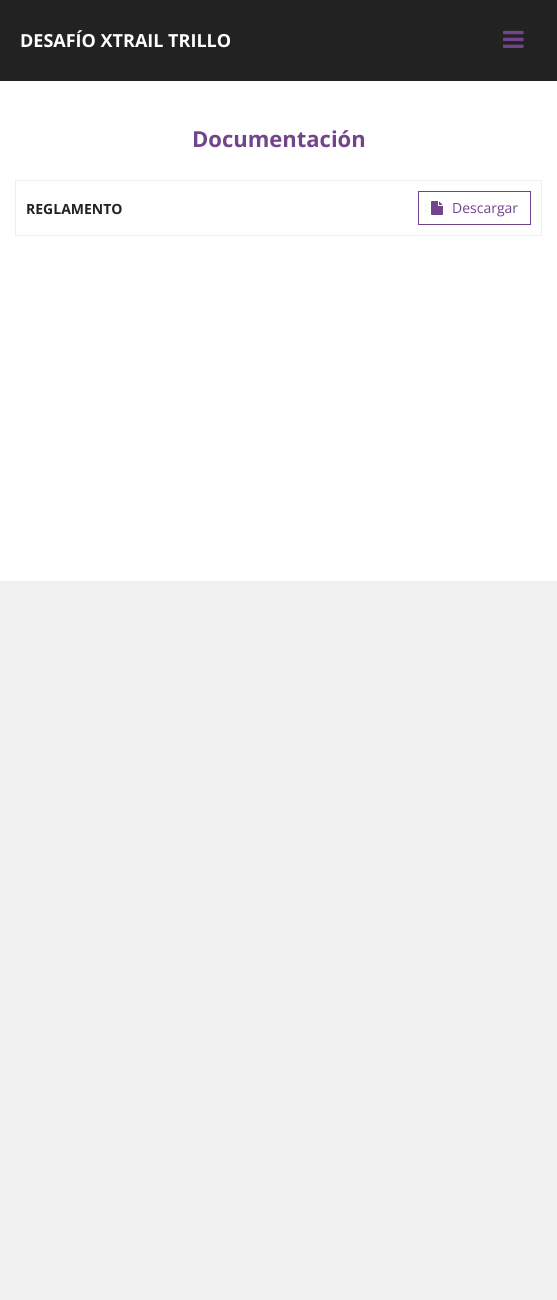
#include <cairo.h>
#include <math.h>
#include <stddef.h>

static cairo_t *ctx;

static void use_color(int r, int g, int b) {
    cairo_set_source_rgb(ctx, r / 255.0, g / 255.0, b / 255.0);
}

static void picture(const char *path, double x, double y, double w, double h) {
    cairo_surface_t *image = cairo_image_surface_create_from_png(path);
    cairo_save(ctx);
    cairo_set_source_surface(ctx, image, x, y);
    cairo_rectangle(ctx, x, y, w, h);
    cairo_fill(ctx);
    cairo_restore(ctx);
    cairo_surface_destroy(image);
}

int main(void) {
    cairo_surface_t *surface = cairo_image_surface_create(CAIRO_FORMAT_RGB24, 557, 1300);
    ctx = cairo_create(surface);
    cairo_font_options_t *options = cairo_font_options_create();
    cairo_font_options_set_hint_metrics(options, CAIRO_HINT_METRICS_OFF);
    cairo_font_options_set_hint_style(options, CAIRO_HINT_STYLE_NONE);
    cairo_set_font_options(ctx, options);
    cairo_set_miter_limit(ctx, 4);
    use_color(240, 240, 240);
    cairo_paint(ctx);
    use_color(34, 34, 34);
    cairo_rectangle(ctx, 0, 0, 557, 81);
    cairo_fill(ctx);
    cairo_select_font_face(ctx, "Open Sans", CAIRO_FONT_SLANT_NORMAL, CAIRO_FONT_WEIGHT_BOLD);
    cairo_set_font_size(ctx, 18);
    use_color(255, 255, 255);
    cairo_move_to(ctx, 20, 47);
    cairo_show_text(ctx, "DESAFÍO XTRAIL TRILLO");
    picture("img1.png", 503, 30, 21, 18);
    cairo_rectangle(ctx, 0, 81, 557, 500);
    cairo_fill(ctx);
    cairo_set_font_size(ctx, 22);
    use_color(114, 68, 140);
    cairo_move_to(ctx, 192, 147);
    cairo_show_text(ctx, "Documentación");
    use_color(238, 238, 238);
    cairo_rectangle(ctx, 15, 180, 527, 1);
    cairo_fill(ctx);
    cairo_rectangle(ctx, 541, 180, 1, 56);
    cairo_fill(ctx);
    cairo_rectangle(ctx, 15, 235, 527, 1);
    cairo_fill(ctx);
    cairo_rectangle(ctx, 15, 180, 1, 56);
    cairo_fill(ctx);
    cairo_set_font_size(ctx, 14);
    use_color(34, 34, 34);
    cairo_move_to(ctx, 26, 214);
    cairo_show_text(ctx, "REGLAMENTO");
    cairo_rectangle(ctx, 418.5, 191.5, 112, 33);
    use_color(114, 68, 140);
    cairo_set_line_width(ctx, 1);
    cairo_stroke(ctx);
    picture("img2.png", 431, 201, 12, 14);
    cairo_select_font_face(ctx, "Open Sans", CAIRO_FONT_SLANT_NORMAL, CAIRO_FONT_WEIGHT_NORMAL);
    cairo_move_to(ctx, 452, 213);
    cairo_show_text(ctx, "Descargar");
    cairo_surface_write_to_png(surface, "result.png");
    cairo_font_options_destroy(options);
    cairo_destroy(ctx);
    cairo_surface_destroy(surface);
    return 0;
}
